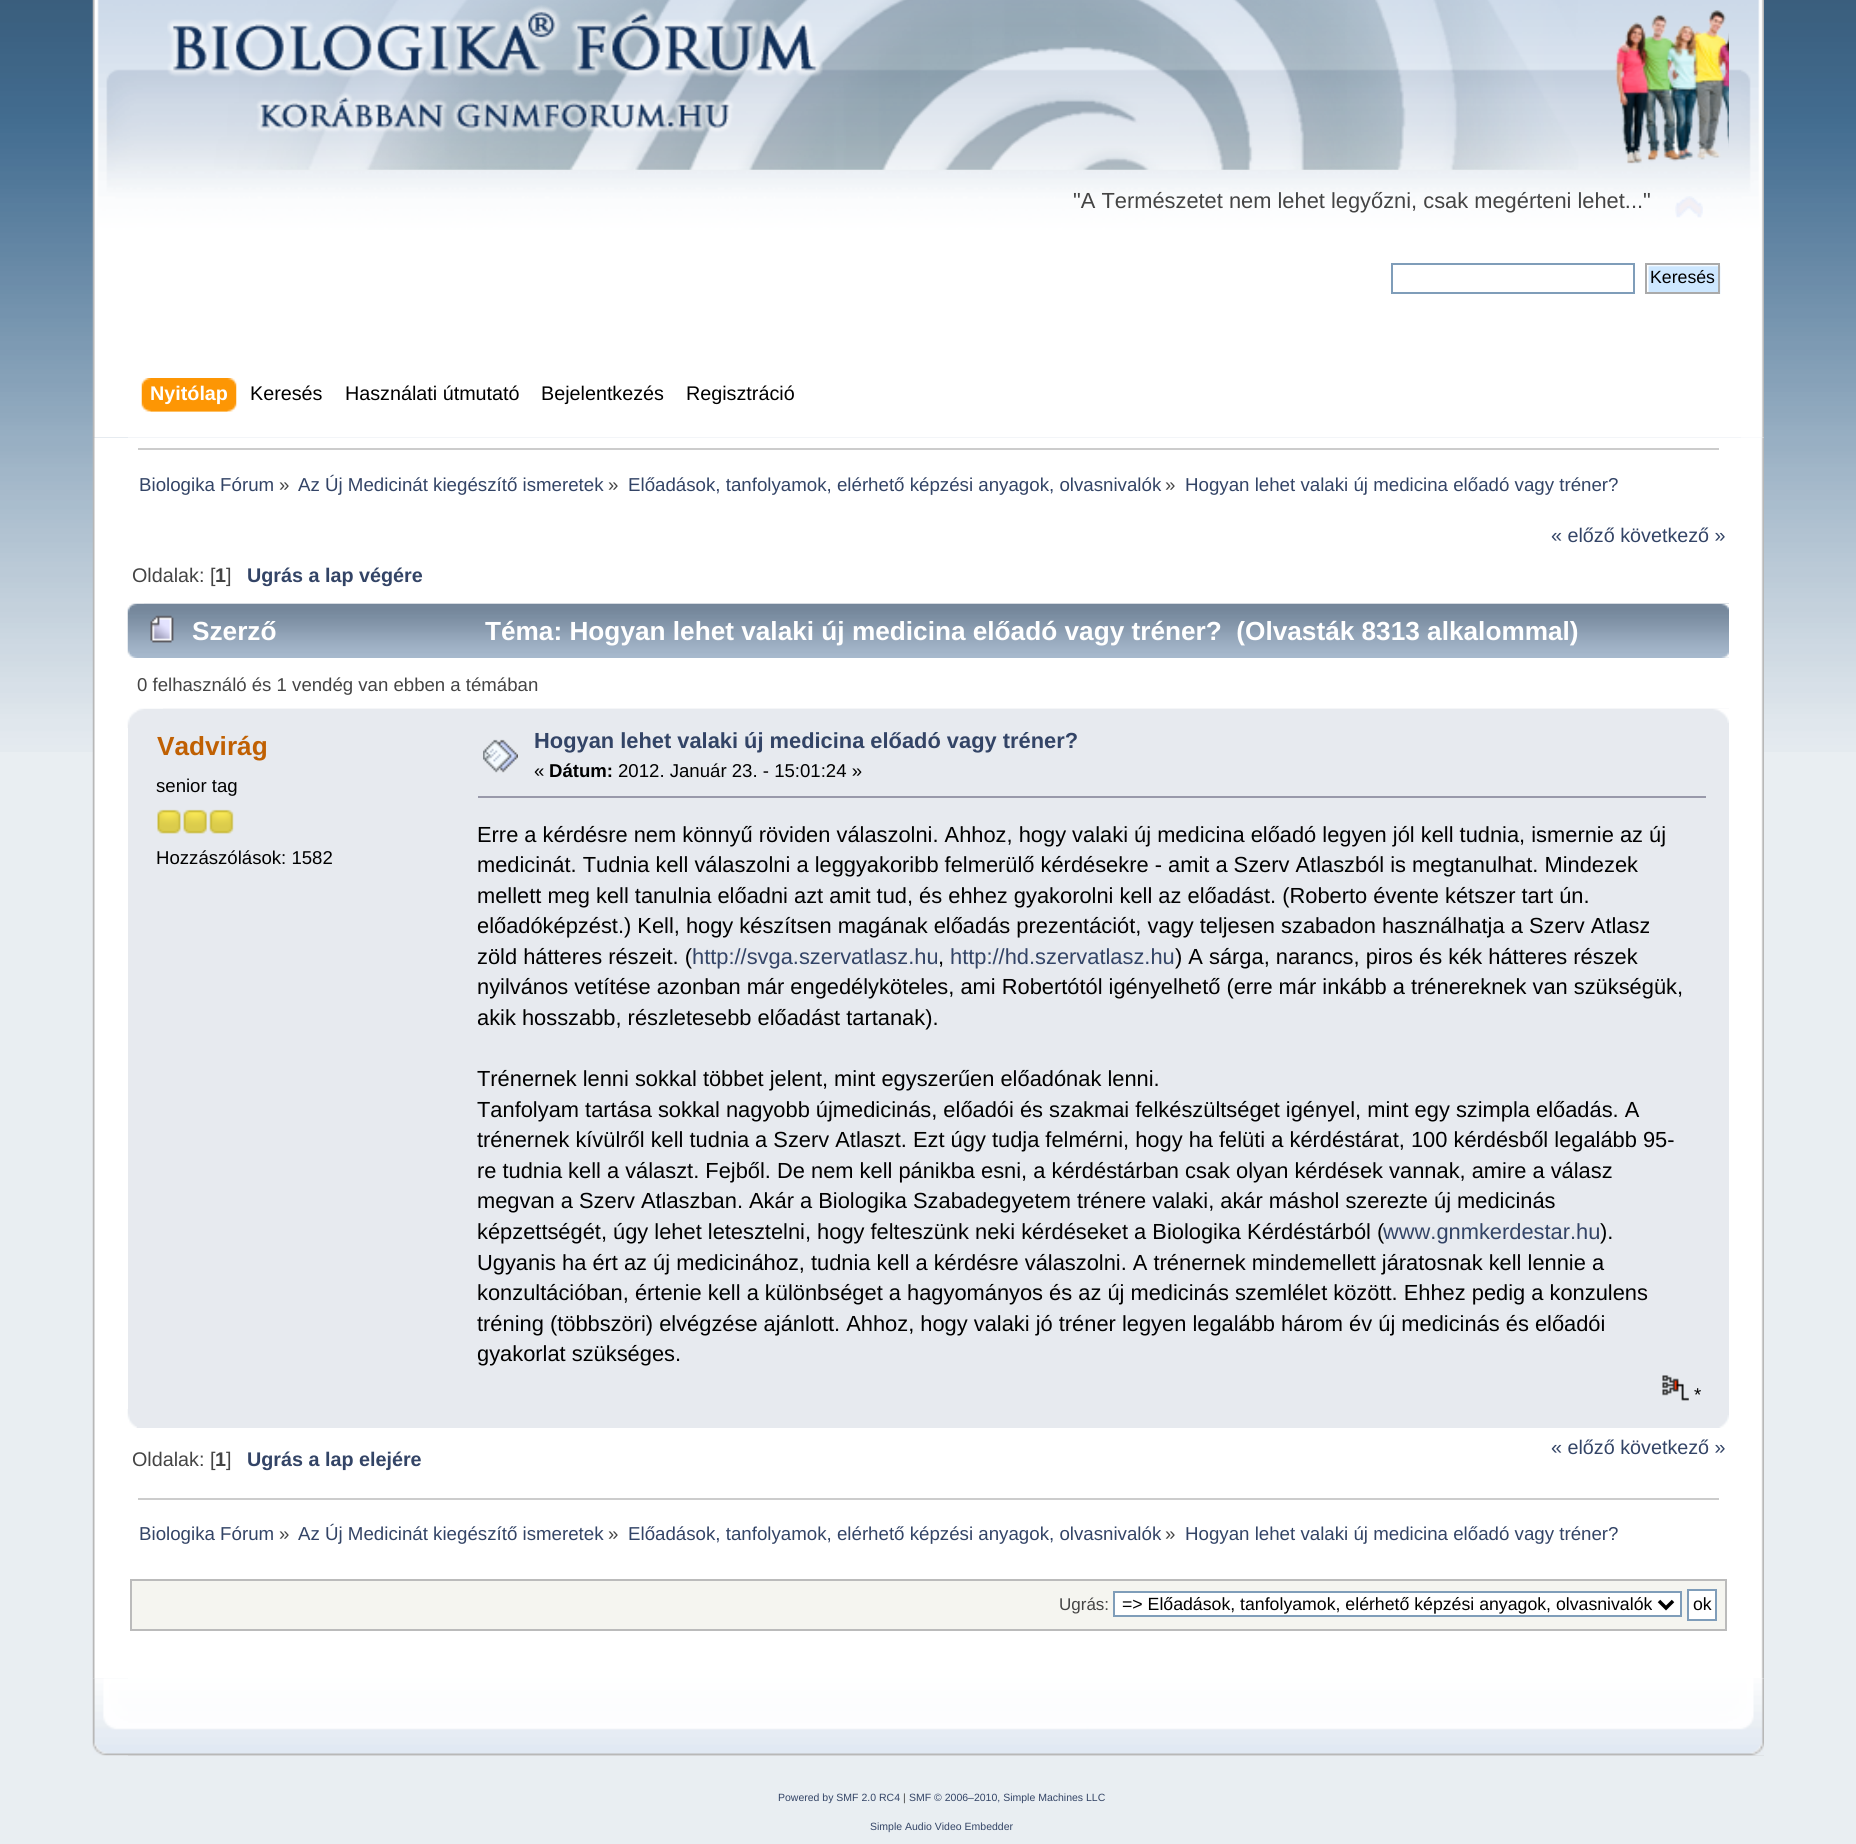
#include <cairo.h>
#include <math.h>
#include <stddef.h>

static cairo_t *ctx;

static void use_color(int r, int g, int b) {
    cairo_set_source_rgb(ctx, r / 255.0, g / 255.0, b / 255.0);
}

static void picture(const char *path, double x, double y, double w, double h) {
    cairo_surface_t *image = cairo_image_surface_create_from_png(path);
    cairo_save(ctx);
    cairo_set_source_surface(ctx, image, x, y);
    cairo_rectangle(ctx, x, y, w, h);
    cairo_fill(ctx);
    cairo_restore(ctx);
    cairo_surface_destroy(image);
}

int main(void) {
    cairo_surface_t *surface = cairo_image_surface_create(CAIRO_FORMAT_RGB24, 1856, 1844);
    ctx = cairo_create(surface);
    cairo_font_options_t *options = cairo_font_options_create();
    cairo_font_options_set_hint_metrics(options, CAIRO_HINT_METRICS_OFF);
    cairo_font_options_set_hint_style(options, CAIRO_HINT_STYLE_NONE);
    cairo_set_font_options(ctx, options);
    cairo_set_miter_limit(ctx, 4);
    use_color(233, 238, 242);
    cairo_paint(ctx);
    picture("img1.png", 0, 0, 1856, 752);
    picture("img2.png", 92, 0, 1672, 438);
    picture("img3.png", 1741, 0, 23, 438);
    picture("img4.png", 167, 0, 1562, 170);
    cairo_select_font_face(ctx, "Liberation Sans", CAIRO_FONT_SLANT_NORMAL, CAIRO_FONT_WEIGHT_NORMAL);
    cairo_set_font_size(ctx, 21.85);
    use_color(68, 68, 68);
    cairo_move_to(ctx, 1073, 208);
    cairo_show_text(ctx, "\"A Természetet nem lehet legyőzni, csak megérteni lehet...\"");
    picture("img5.png", 1675, 196, 28, 22);
    cairo_rectangle(ctx, 1392, 264, 242, 29);
    use_color(127, 157, 185);
    cairo_stroke(ctx);
    picture("img6.png", 1647, 264, 74, 30);
    cairo_rectangle(ctx, 1646, 264, 73, 29);
    use_color(170, 170, 170);
    cairo_stroke(ctx);
    cairo_set_font_size(ctx, 17.7);
    use_color(0, 0, 0);
    cairo_move_to(ctx, 1650, 283);
    cairo_show_text(ctx, "Keresés");
    picture("img7.png", 150, 378, 87, 34);
    picture("img8.png", 141, 378, 87, 34);
    cairo_select_font_face(ctx, "Liberation Sans", CAIRO_FONT_SLANT_NORMAL, CAIRO_FONT_WEIGHT_BOLD);
    cairo_set_font_size(ctx, 19.75);
    use_color(255, 255, 255);
    cairo_move_to(ctx, 150, 400);
    cairo_show_text(ctx, "Nyitólap");
    cairo_select_font_face(ctx, "Liberation Sans", CAIRO_FONT_SLANT_NORMAL, CAIRO_FONT_WEIGHT_NORMAL);
    use_color(0, 0, 0);
    cairo_move_to(ctx, 250, 400);
    cairo_show_text(ctx, "Keresés");
    cairo_move_to(ctx, 345, 400);
    cairo_show_text(ctx, "Használati útmutató");
    cairo_move_to(ctx, 541, 400);
    cairo_show_text(ctx, "Bejelentkezés");
    cairo_move_to(ctx, 686, 400);
    cairo_show_text(ctx, "Regisztráció");
    picture("img9.png", 92, 437, 1672, 1242);
    picture("img10.png", 128, 437, 1636, 1242);
    use_color(204, 204, 204);
    cairo_rectangle(ctx, 138, 448, 1581, 2);
    cairo_fill(ctx);
    cairo_set_font_size(ctx, 18.7);
    use_color(51, 68, 102);
    cairo_move_to(ctx, 139, 491);
    cairo_show_text(ctx, "Biologika Fórum");
    use_color(68, 68, 68);
    cairo_move_to(ctx, 279, 491);
    cairo_show_text(ctx, "»");
    use_color(51, 68, 102);
    cairo_move_to(ctx, 298, 491);
    cairo_show_text(ctx, "Az Új Medicinát kiegészítő ismeretek");
    use_color(68, 68, 68);
    cairo_move_to(ctx, 608, 491);
    cairo_show_text(ctx, "»");
    use_color(51, 68, 102);
    cairo_move_to(ctx, 628, 491);
    cairo_show_text(ctx, "Előadások, tanfolyamok, elérhető képzési anyagok, olvasnivalók");
    use_color(68, 68, 68);
    cairo_move_to(ctx, 1165, 491);
    cairo_show_text(ctx, "»");
    use_color(51, 68, 102);
    cairo_move_to(ctx, 1185, 491);
    cairo_show_text(ctx, "Hogyan lehet valaki új medicina előadó vagy tréner?");
    cairo_set_font_size(ctx, 19.75);
    cairo_move_to(ctx, 1551, 542);
    cairo_show_text(ctx, "« előző következő »");
    use_color(68, 68, 68);
    cairo_move_to(ctx, 132, 582);
    cairo_show_text(ctx, "Oldalak: [");
    cairo_select_font_face(ctx, "Liberation Sans", CAIRO_FONT_SLANT_NORMAL, CAIRO_FONT_WEIGHT_BOLD);
    cairo_move_to(ctx, 215, 582);
    cairo_show_text(ctx, "1");
    cairo_select_font_face(ctx, "Liberation Sans", CAIRO_FONT_SLANT_NORMAL, CAIRO_FONT_WEIGHT_NORMAL);
    cairo_move_to(ctx, 226, 582);
    cairo_show_text(ctx, "]");
    cairo_select_font_face(ctx, "Liberation Sans", CAIRO_FONT_SLANT_NORMAL, CAIRO_FONT_WEIGHT_BOLD);
    use_color(51, 68, 102);
    cairo_move_to(ctx, 247, 582);
    cairo_show_text(ctx, "Ugrás a lap végére");
    picture("img11.png", 127, 603, 1602, 55);
    picture("img12.png", 144, 603, 1585, 55);
    picture("img13.png", 150, 615, 24, 28);
    cairo_set_font_size(ctx, 26.2);
    use_color(255, 255, 255);
    cairo_move_to(ctx, 192, 640);
    cairo_show_text(ctx, "Szerző");
    cairo_move_to(ctx, 485, 640);
    cairo_show_text(ctx, "Téma: Hogyan lehet valaki új medicina előadó vagy tréner?  (Olvasták 8313 alkalommal)");
    cairo_select_font_face(ctx, "Liberation Sans", CAIRO_FONT_SLANT_NORMAL, CAIRO_FONT_WEIGHT_NORMAL);
    cairo_set_font_size(ctx, 18.6);
    use_color(68, 68, 68);
    cairo_move_to(ctx, 137, 691);
    cairo_show_text(ctx, "0 felhasználó és 1 vendég van ebben a témában");
    use_color(231, 234, 239);
    cairo_rectangle(ctx, 128, 728, 1601, 700);
    cairo_fill(ctx);
    picture("img14.png", 127, 708, 1602, 20);
    picture("img15.png", 163, 708, 1566, 15);
    cairo_select_font_face(ctx, "Liberation Sans", CAIRO_FONT_SLANT_NORMAL, CAIRO_FONT_WEIGHT_BOLD);
    cairo_set_font_size(ctx, 26.2);
    use_color(192, 96, 2);
    cairo_move_to(ctx, 157, 755);
    cairo_show_text(ctx, "Vadvirág");
    cairo_select_font_face(ctx, "Liberation Sans", CAIRO_FONT_SLANT_NORMAL, CAIRO_FONT_WEIGHT_NORMAL);
    cairo_set_font_size(ctx, 18.6);
    use_color(0, 0, 0);
    cairo_move_to(ctx, 156, 792);
    cairo_show_text(ctx, "senior tag");
    picture("img16.png", 157, 809, 24, 25);
    picture("img17.png", 183, 809, 24, 25);
    picture("img18.png", 209, 809, 25, 25);
    cairo_move_to(ctx, 156, 864);
    cairo_show_text(ctx, "Hozzászólások: 1582");
    picture("img19.png", 483, 739, 35, 34);
    cairo_select_font_face(ctx, "Liberation Sans", CAIRO_FONT_SLANT_NORMAL, CAIRO_FONT_WEIGHT_BOLD);
    cairo_set_font_size(ctx, 21.85);
    use_color(51, 68, 102);
    cairo_move_to(ctx, 534, 748);
    cairo_show_text(ctx, "Hogyan lehet valaki új medicina előadó vagy tréner?");
    cairo_select_font_face(ctx, "Liberation Sans", CAIRO_FONT_SLANT_NORMAL, CAIRO_FONT_WEIGHT_NORMAL);
    cairo_set_font_size(ctx, 18.6);
    use_color(0, 0, 0);
    cairo_move_to(ctx, 534, 777);
    cairo_show_text(ctx, "«");
    cairo_select_font_face(ctx, "Liberation Sans", CAIRO_FONT_SLANT_NORMAL, CAIRO_FONT_WEIGHT_BOLD);
    cairo_move_to(ctx, 549, 777);
    cairo_show_text(ctx, "Dátum:");
    cairo_select_font_face(ctx, "Liberation Sans", CAIRO_FONT_SLANT_NORMAL, CAIRO_FONT_WEIGHT_NORMAL);
    cairo_move_to(ctx, 618, 777);
    cairo_show_text(ctx, "2012. Január 23. - 15:01:24 »");
    use_color(153, 153, 170);
    cairo_rectangle(ctx, 478, 796, 1228, 2);
    cairo_fill(ctx);
    cairo_set_font_size(ctx, 21.85);
    use_color(0, 0, 0);
    cairo_move_to(ctx, 477, 842);
    cairo_show_text(ctx, "Erre a kérdésre nem könnyű röviden válaszolni. Ahhoz, hogy valaki új medicina előadó legyen jól kell tudnia, ismernie az új");
    cairo_move_to(ctx, 477, 872);
    cairo_show_text(ctx, "medicinát. Tudnia kell válaszolni a leggyakoribb felmerülő kérdésekre - amit a Szerv Atlaszból is megtanulhat. Mindezek");
    cairo_move_to(ctx, 477, 903);
    cairo_show_text(ctx, "mellett meg kell tanulnia előadni azt amit tud, és ehhez gyakorolni kell az előadást. (Roberto évente kétszer tart ún.");
    cairo_move_to(ctx, 477, 933);
    cairo_show_text(ctx, "előadóképzést.) Kell, hogy készítsen magának előadás prezentációt, vagy teljesen szabadon használhatja a Szerv Atlasz");
    cairo_move_to(ctx, 477, 964);
    cairo_show_text(ctx, "zöld hátteres részeit. (");
    use_color(51, 68, 102);
    cairo_move_to(ctx, 692, 964);
    cairo_show_text(ctx, "http://svga.szervatlasz.hu");
    use_color(0, 0, 0);
    cairo_move_to(ctx, 938, 964);
    cairo_show_text(ctx, ",");
    use_color(51, 68, 102);
    cairo_move_to(ctx, 950, 964);
    cairo_show_text(ctx, "http://hd.szervatlasz.hu");
    use_color(0, 0, 0);
    cairo_move_to(ctx, 1175, 964);
    cairo_show_text(ctx, ") A sárga, narancs, piros és kék hátteres részek");
    cairo_move_to(ctx, 477, 994);
    cairo_show_text(ctx, "nyilvános vetítése azonban már engedélyköteles, ami Robertótól igényelhető (erre már inkább a trénereknek van szükségük,");
    cairo_move_to(ctx, 477, 1025);
    cairo_show_text(ctx, "akik hosszabb, részletesebb előadást tartanak).");
    cairo_move_to(ctx, 477, 1086);
    cairo_show_text(ctx, "Trénernek lenni sokkal többet jelent, mint egyszerűen előadónak lenni.");
    cairo_move_to(ctx, 477, 1117);
    cairo_show_text(ctx, "Tanfolyam tartása sokkal nagyobb újmedicinás, előadói és szakmai felkészültséget igényel, mint egy szimpla előadás. A");
    cairo_move_to(ctx, 477, 1147);
    cairo_show_text(ctx, "trénernek kívülről kell tudnia a Szerv Atlaszt. Ezt úgy tudja felmérni, hogy ha felüti a kérdéstárat, 100 kérdésből legalább 95-");
    cairo_move_to(ctx, 477, 1178);
    cairo_show_text(ctx, "re tudnia kell a választ. Fejből. De nem kell pánikba esni, a kérdéstárban csak olyan kérdések vannak, amire a válasz");
    cairo_move_to(ctx, 477, 1208);
    cairo_show_text(ctx, "megvan a Szerv Atlaszban. Akár a Biologika Szabadegyetem trénere valaki, akár máshol szerezte új medicinás");
    cairo_move_to(ctx, 477, 1239);
    cairo_show_text(ctx, "képzettségét, úgy lehet letesztelni, hogy felteszünk neki kérdéseket a Biologika Kérdéstárból (");
    use_color(51, 68, 102);
    cairo_move_to(ctx, 1383, 1239);
    cairo_show_text(ctx, "www.gnmkerdestar.hu");
    use_color(0, 0, 0);
    cairo_move_to(ctx, 1600, 1239);
    cairo_show_text(ctx, ").");
    cairo_move_to(ctx, 477, 1270);
    cairo_show_text(ctx, "Ugyanis ha ért az új medicinához, tudnia kell a kérdésre válaszolni. A trénernek mindemellett járatosnak kell lennie a");
    cairo_move_to(ctx, 477, 1300);
    cairo_show_text(ctx, "konzultációban, értenie kell a különbséget a hagyományos és az új medicinás szemlélet között. Ehhez pedig a konzulens");
    cairo_move_to(ctx, 477, 1331);
    cairo_show_text(ctx, "tréning (többszöri) elvégzése ajánlott. Ahhoz, hogy valaki jó tréner legyen legalább három év új medicinás és előadói");
    cairo_move_to(ctx, 477, 1361);
    cairo_show_text(ctx, "gyakorlat szükséges.");
    picture("img20.png", 1662, 1375, 27, 26);
    cairo_set_font_size(ctx, 18.6);
    cairo_move_to(ctx, 1694, 1401);
    cairo_show_text(ctx, "*");
    picture("img21.png", 127, 1409, 10, 19);
    picture("img22.png", 1719, 1415, 10, 13);
    cairo_set_font_size(ctx, 19.75);
    use_color(51, 68, 102);
    cairo_move_to(ctx, 1551, 1454);
    cairo_show_text(ctx, "« előző következő »");
    use_color(68, 68, 68);
    cairo_move_to(ctx, 132, 1466);
    cairo_show_text(ctx, "Oldalak: [");
    cairo_select_font_face(ctx, "Liberation Sans", CAIRO_FONT_SLANT_NORMAL, CAIRO_FONT_WEIGHT_BOLD);
    cairo_move_to(ctx, 215, 1466);
    cairo_show_text(ctx, "1");
    cairo_select_font_face(ctx, "Liberation Sans", CAIRO_FONT_SLANT_NORMAL, CAIRO_FONT_WEIGHT_NORMAL);
    cairo_move_to(ctx, 226, 1466);
    cairo_show_text(ctx, "]");
    cairo_select_font_face(ctx, "Liberation Sans", CAIRO_FONT_SLANT_NORMAL, CAIRO_FONT_WEIGHT_BOLD);
    use_color(51, 68, 102);
    cairo_move_to(ctx, 247, 1466);
    cairo_show_text(ctx, "Ugrás a lap elejére");
    use_color(204, 204, 204);
    cairo_rectangle(ctx, 138, 1498, 1581, 2);
    cairo_fill(ctx);
    cairo_select_font_face(ctx, "Liberation Sans", CAIRO_FONT_SLANT_NORMAL, CAIRO_FONT_WEIGHT_NORMAL);
    cairo_set_font_size(ctx, 18.7);
    use_color(51, 68, 102);
    cairo_move_to(ctx, 139, 1540);
    cairo_show_text(ctx, "Biologika Fórum");
    use_color(68, 68, 68);
    cairo_move_to(ctx, 279, 1540);
    cairo_show_text(ctx, "»");
    use_color(51, 68, 102);
    cairo_move_to(ctx, 298, 1540);
    cairo_show_text(ctx, "Az Új Medicinát kiegészítő ismeretek");
    use_color(68, 68, 68);
    cairo_move_to(ctx, 608, 1540);
    cairo_show_text(ctx, "»");
    use_color(51, 68, 102);
    cairo_move_to(ctx, 628, 1540);
    cairo_show_text(ctx, "Előadások, tanfolyamok, elérhető képzési anyagok, olvasnivalók");
    use_color(68, 68, 68);
    cairo_move_to(ctx, 1165, 1540);
    cairo_show_text(ctx, "»");
    use_color(51, 68, 102);
    cairo_move_to(ctx, 1185, 1540);
    cairo_show_text(ctx, "Hogyan lehet valaki új medicina előadó vagy tréner?");
    use_color(245, 245, 240);
    cairo_rectangle(ctx, 131, 1580, 1595, 50);
    cairo_fill_preserve(ctx);
    use_color(187, 187, 187);
    cairo_stroke(ctx);
    cairo_set_font_size(ctx, 17);
    use_color(68, 68, 68);
    cairo_move_to(ctx, 1059, 1610);
    cairo_show_text(ctx, "Ugrás:");
    use_color(255, 255, 255);
    cairo_rectangle(ctx, 1114, 1592, 567, 24);
    cairo_fill_preserve(ctx);
    use_color(127, 157, 185);
    cairo_stroke(ctx);
    cairo_new_path(ctx);
    cairo_move_to(ctx, 1659, 1601);
    cairo_line_to(ctx, 1666, 1608);
    cairo_line_to(ctx, 1673, 1601);
    use_color(0, 0, 0);
    cairo_set_line_width(ctx, 3.5);
    cairo_stroke(ctx);
    cairo_set_font_size(ctx, 17.7);
    cairo_move_to(ctx, 1122, 1610);
    cairo_show_text(ctx, "=> Előadások, tanfolyamok, elérhető képzési anyagok, olvasnivalók");
    use_color(255, 255, 255);
    cairo_rectangle(ctx, 1688, 1590, 28, 30);
    cairo_fill_preserve(ctx);
    use_color(127, 157, 185);
    cairo_set_line_width(ctx, 2);
    cairo_stroke(ctx);
    use_color(0, 0, 0);
    cairo_move_to(ctx, 1693, 1610);
    cairo_show_text(ctx, "ok");
    picture("img23.png", 92, 1678, 1672, 78);
    picture("img24.png", 128, 1678, 1636, 78);
    cairo_set_font_size(ctx, 10.5);
    use_color(51, 68, 102);
    cairo_move_to(ctx, 778, 1801);
    cairo_show_text(ctx, "Powered by SMF 2.0 RC4");
    use_color(68, 68, 68);
    cairo_move_to(ctx, 903, 1801);
    cairo_show_text(ctx, "|");
    use_color(51, 68, 102);
    cairo_move_to(ctx, 909, 1801);
    cairo_show_text(ctx, "SMF © 2006–2010, Simple Machines LLC");
    cairo_move_to(ctx, 870, 1830);
    cairo_show_text(ctx, "Simple Audio Video Embedder");
    cairo_surface_write_to_png(surface, "result.png");
    cairo_font_options_destroy(options);
    cairo_destroy(ctx);
    cairo_surface_destroy(surface);
    return 0;
}
